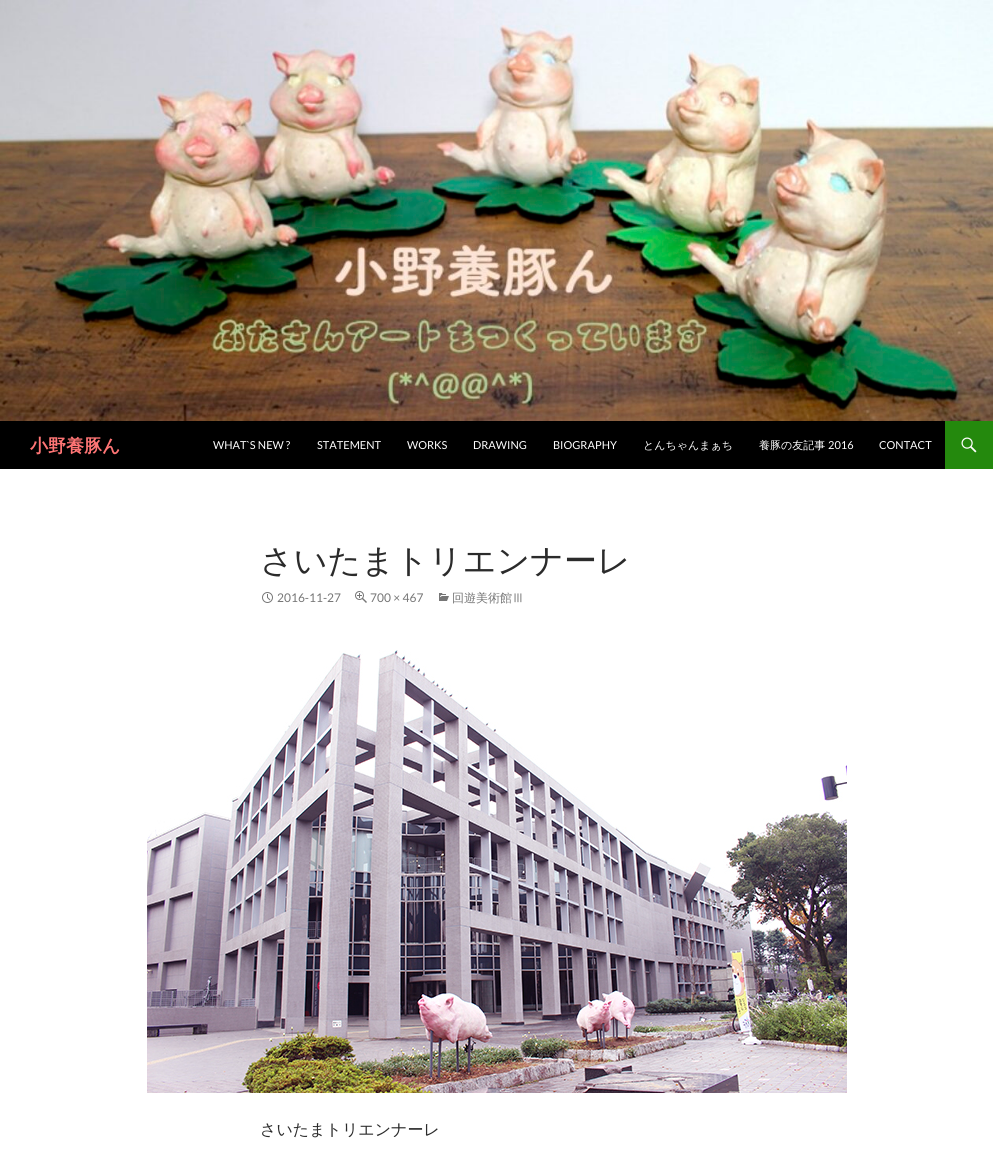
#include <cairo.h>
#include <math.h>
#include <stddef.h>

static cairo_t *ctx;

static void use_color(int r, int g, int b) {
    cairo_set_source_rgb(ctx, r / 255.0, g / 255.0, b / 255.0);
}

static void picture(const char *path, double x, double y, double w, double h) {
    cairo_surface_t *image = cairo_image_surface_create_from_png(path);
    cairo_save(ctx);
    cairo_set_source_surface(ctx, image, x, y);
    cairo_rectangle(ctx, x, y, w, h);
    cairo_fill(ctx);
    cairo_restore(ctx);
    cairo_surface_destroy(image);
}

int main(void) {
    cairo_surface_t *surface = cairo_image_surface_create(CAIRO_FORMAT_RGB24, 993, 1172);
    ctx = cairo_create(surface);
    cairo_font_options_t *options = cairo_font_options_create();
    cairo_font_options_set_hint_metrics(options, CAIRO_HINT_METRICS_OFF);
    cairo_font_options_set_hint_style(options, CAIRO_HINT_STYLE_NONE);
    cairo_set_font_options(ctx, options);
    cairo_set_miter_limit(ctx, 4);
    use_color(255, 255, 255);
    cairo_paint(ctx);
    picture("img1.png", 0, 0, 993, 421);
    use_color(0, 0, 0);
    cairo_rectangle(ctx, 0, 421, 945, 48);
    cairo_fill(ctx);
    cairo_select_font_face(ctx, "WenQuanYi Zen Hei", CAIRO_FONT_SLANT_NORMAL, CAIRO_FONT_WEIGHT_BOLD);
    cairo_set_font_size(ctx, 18);
    use_color(255, 117, 117);
    cairo_move_to(ctx, 30, 452);
    cairo_show_text(ctx, "小野養豚ん");
    cairo_select_font_face(ctx, "Lato", CAIRO_FONT_SLANT_NORMAL, CAIRO_FONT_WEIGHT_NORMAL);
    cairo_set_font_size(ctx, 11);
    use_color(255, 255, 255);
    cairo_move_to(ctx, 213, 449);
    cairo_show_text(ctx, "WHAT`S NEW ?");
    cairo_move_to(ctx, 317, 449);
    cairo_show_text(ctx, "STATEMENT");
    cairo_move_to(ctx, 407, 449);
    cairo_show_text(ctx, "WORKS");
    cairo_move_to(ctx, 473, 449);
    cairo_show_text(ctx, "DRAWING");
    cairo_move_to(ctx, 553, 449);
    cairo_show_text(ctx, "BIOGRAPHY");
    cairo_select_font_face(ctx, "WenQuanYi Zen Hei Medium", CAIRO_FONT_SLANT_NORMAL, CAIRO_FONT_WEIGHT_NORMAL);
    cairo_move_to(ctx, 643, 449);
    cairo_show_text(ctx, "とんちゃんまぁち");
    cairo_move_to(ctx, 759, 449);
    cairo_show_text(ctx, "養豚の友記事");
    cairo_select_font_face(ctx, "Lato", CAIRO_FONT_SLANT_NORMAL, CAIRO_FONT_WEIGHT_NORMAL);
    cairo_move_to(ctx, 828, 449);
    cairo_show_text(ctx, "2016");
    cairo_move_to(ctx, 879, 449);
    cairo_show_text(ctx, "CONTACT");
    use_color(36, 137, 13);
    cairo_rectangle(ctx, 945, 421, 48, 48);
    cairo_fill(ctx);
    picture("img2.png", 961, 437, 16, 16);
    cairo_select_font_face(ctx, "WenQuanYi Zen Hei Medium", CAIRO_FONT_SLANT_NORMAL, CAIRO_FONT_WEIGHT_NORMAL);
    cairo_set_font_size(ctx, 33);
    use_color(43, 43, 43);
    cairo_move_to(ctx, 260, 572);
    cairo_show_text(ctx, "さいたまトリエンナーレ");
    picture("img3.png", 262, 592, 11, 11);
    cairo_select_font_face(ctx, "Lato", CAIRO_FONT_SLANT_NORMAL, CAIRO_FONT_WEIGHT_NORMAL);
    cairo_set_font_size(ctx, 12);
    use_color(118, 118, 118);
    cairo_move_to(ctx, 277, 602);
    cairo_show_text(ctx, "2016-11-27");
    picture("img4.png", 355, 591, 12, 12);
    cairo_move_to(ctx, 370, 602);
    cairo_show_text(ctx, "700 × 467");
    picture("img5.png", 439, 593, 10, 8);
    cairo_select_font_face(ctx, "WenQuanYi Zen Hei Medium", CAIRO_FONT_SLANT_NORMAL, CAIRO_FONT_WEIGHT_NORMAL);
    cairo_move_to(ctx, 452, 602);
    cairo_show_text(ctx, "回遊美術館Ⅲ");
    picture("img6.png", 147, 650, 700, 443);
    cairo_set_font_size(ctx, 16);
    use_color(43, 43, 43);
    cairo_move_to(ctx, 260, 1135);
    cairo_show_text(ctx, "さいたまトリエンナーレ");
    cairo_surface_write_to_png(surface, "result.png");
    cairo_font_options_destroy(options);
    cairo_destroy(ctx);
    cairo_surface_destroy(surface);
    return 0;
}
